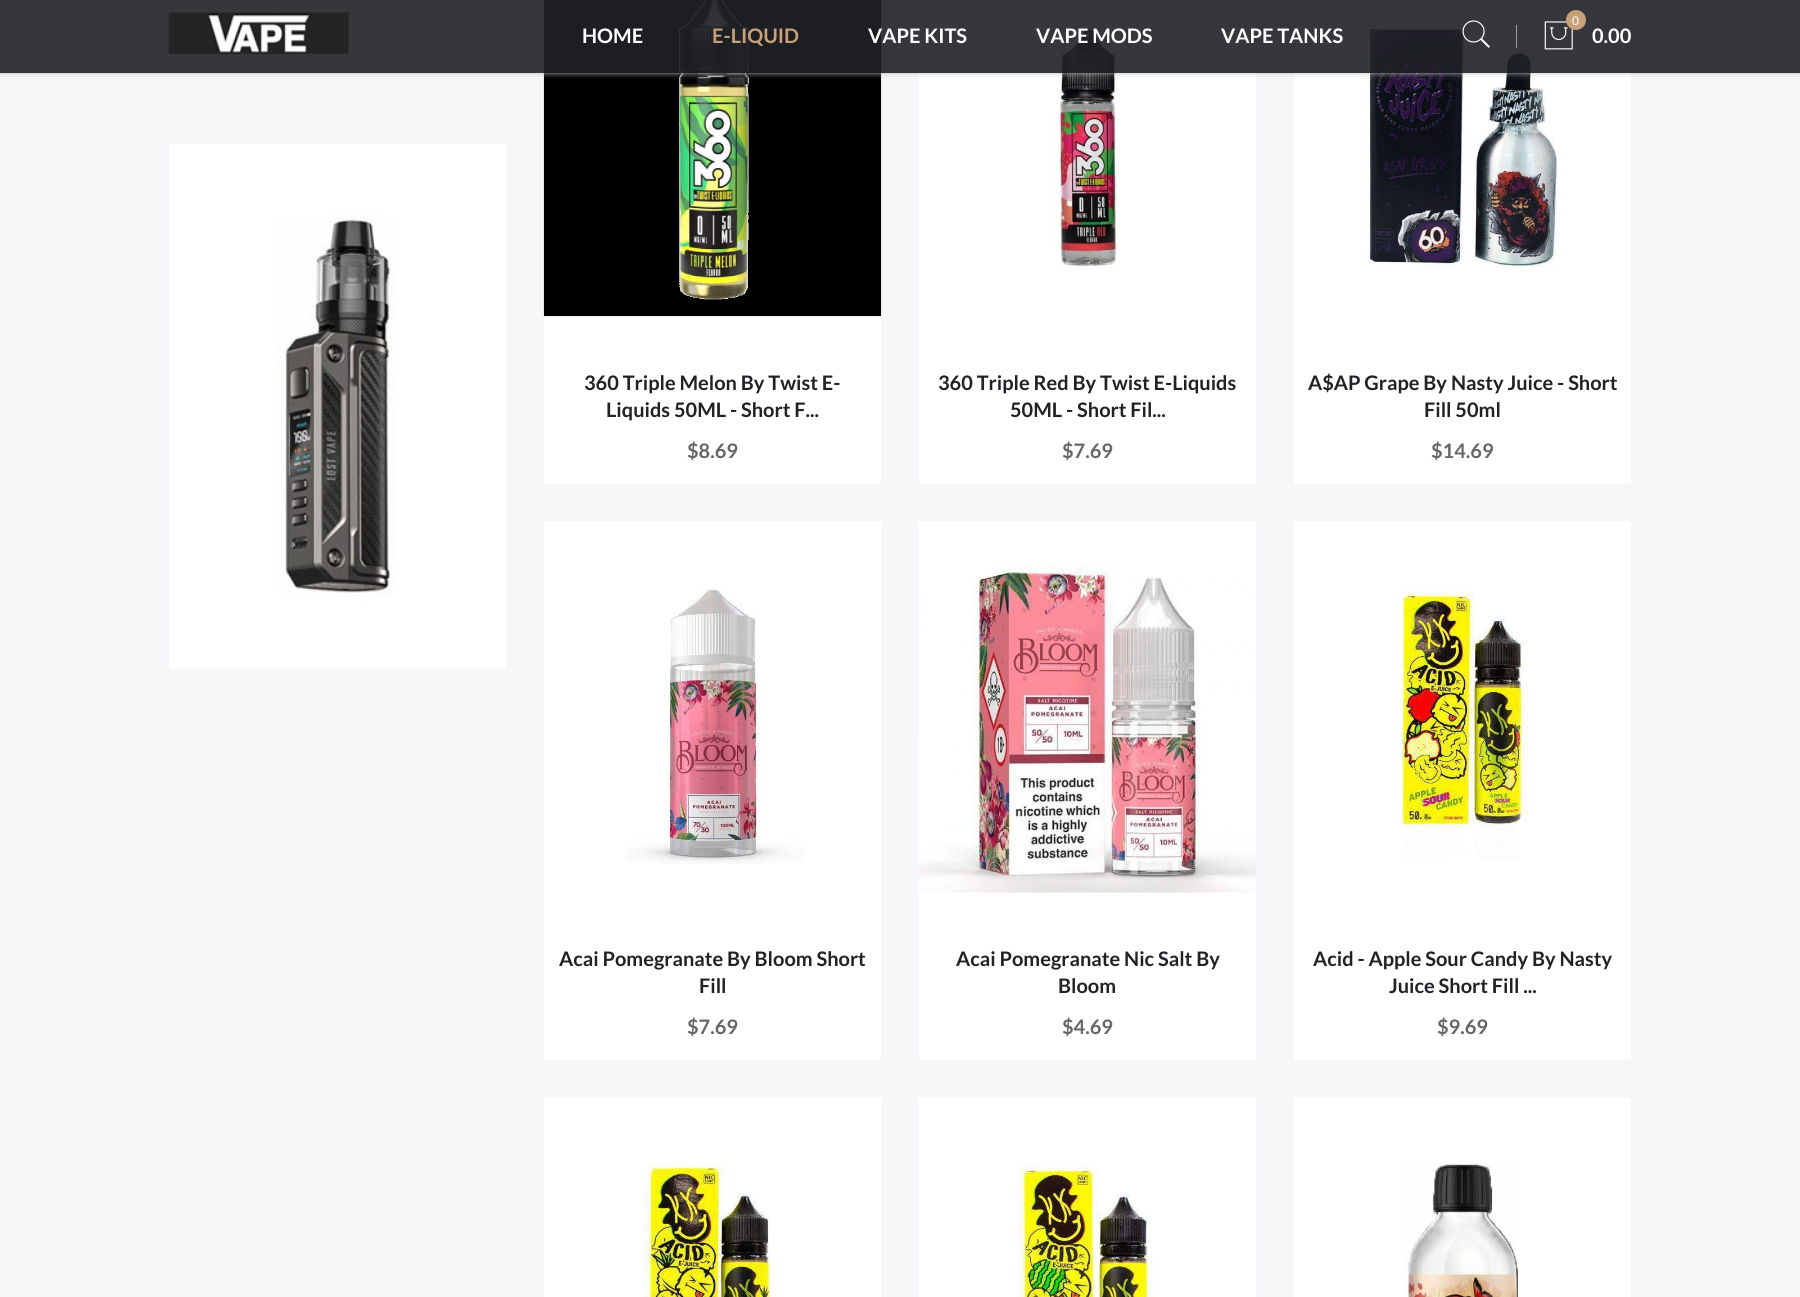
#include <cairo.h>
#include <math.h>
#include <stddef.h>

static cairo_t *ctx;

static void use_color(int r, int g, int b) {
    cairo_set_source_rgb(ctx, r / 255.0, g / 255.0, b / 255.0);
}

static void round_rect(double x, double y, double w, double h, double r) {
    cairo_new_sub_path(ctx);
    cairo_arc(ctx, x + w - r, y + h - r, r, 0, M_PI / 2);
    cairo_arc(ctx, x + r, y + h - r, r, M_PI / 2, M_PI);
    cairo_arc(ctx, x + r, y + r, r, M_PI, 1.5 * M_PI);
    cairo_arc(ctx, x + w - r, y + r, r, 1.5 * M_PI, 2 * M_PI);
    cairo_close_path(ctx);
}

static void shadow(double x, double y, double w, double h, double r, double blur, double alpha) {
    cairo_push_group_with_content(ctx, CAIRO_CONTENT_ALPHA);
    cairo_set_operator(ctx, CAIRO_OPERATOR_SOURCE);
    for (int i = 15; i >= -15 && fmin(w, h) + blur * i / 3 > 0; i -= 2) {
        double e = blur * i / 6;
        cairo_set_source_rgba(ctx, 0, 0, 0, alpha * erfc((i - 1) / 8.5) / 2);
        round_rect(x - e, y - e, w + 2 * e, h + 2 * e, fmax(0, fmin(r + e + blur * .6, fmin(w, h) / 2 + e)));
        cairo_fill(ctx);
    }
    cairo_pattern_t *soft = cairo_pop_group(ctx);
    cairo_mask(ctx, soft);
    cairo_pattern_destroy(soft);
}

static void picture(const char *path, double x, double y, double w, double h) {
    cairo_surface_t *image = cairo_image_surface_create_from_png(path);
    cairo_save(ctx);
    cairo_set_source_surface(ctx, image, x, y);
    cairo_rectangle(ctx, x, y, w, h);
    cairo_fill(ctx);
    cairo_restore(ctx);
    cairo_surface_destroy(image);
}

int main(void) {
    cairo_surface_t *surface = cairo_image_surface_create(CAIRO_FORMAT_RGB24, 1800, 1297);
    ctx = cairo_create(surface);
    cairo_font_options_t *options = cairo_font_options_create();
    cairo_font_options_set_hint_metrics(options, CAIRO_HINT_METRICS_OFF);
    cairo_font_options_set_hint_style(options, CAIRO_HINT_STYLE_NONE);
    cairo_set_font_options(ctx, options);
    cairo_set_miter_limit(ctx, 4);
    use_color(247, 247, 250);
    cairo_paint(ctx);
    use_color(255, 255, 255);
    round_rect(169, -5, 337, 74, 5);
    cairo_fill(ctx);
    picture("img5.png", 543, 0, 339, 317);
    cairo_rectangle(ctx, 919, 0, 337, 484);
    cairo_fill(ctx);
    picture("img6.png", 1054, 28, 65, 242);
    cairo_rectangle(ctx, 1294, 0, 337, 484);
    cairo_fill(ctx);
    picture("img7.png", 1366, 26, 194, 242);
    cairo_save(ctx);
    cairo_set_fill_rule(ctx, CAIRO_FILL_RULE_EVEN_ODD);
    cairo_new_path(ctx);
    cairo_move_to(ctx, 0, 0);
    cairo_line_to(ctx, 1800, 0);
    cairo_line_to(ctx, 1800, 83);
    cairo_line_to(ctx, 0, 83);
    cairo_close_path(ctx);
    cairo_move_to(ctx, 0, 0);
    cairo_line_to(ctx, 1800, 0);
    cairo_line_to(ctx, 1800, 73);
    cairo_line_to(ctx, 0, 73);
    cairo_close_path(ctx);
    cairo_clip(ctx);
    use_color(189, 189, 189);
    shadow(0, 0, 1800, 73, 0, 3, 1);
    cairo_restore(ctx);
    cairo_set_source_rgba(ctx, 0.125, 0.133, 0.149, 0.9);
    cairo_rectangle(ctx, 0, 0, 1800, 73);
    cairo_fill(ctx);
    picture("img1.png", 168, 12, 181, 42);
    cairo_select_font_face(ctx, "Lato", CAIRO_FONT_SLANT_NORMAL, CAIRO_FONT_WEIGHT_BOLD);
    cairo_set_font_size(ctx, 20);
    use_color(255, 255, 255);
    cairo_move_to(ctx, 582, 43);
    cairo_show_text(ctx, "HOME");
    use_color(199, 161, 122);
    cairo_move_to(ctx, 712, 43);
    cairo_show_text(ctx, "E-LIQUID");
    use_color(255, 255, 255);
    cairo_move_to(ctx, 868, 43);
    cairo_show_text(ctx, "VAPE KITS");
    cairo_move_to(ctx, 1036, 43);
    cairo_show_text(ctx, "VAPE MODS");
    cairo_move_to(ctx, 1221, 43);
    cairo_show_text(ctx, "VAPE TANKS");
    picture("img2.png", 1462, 20, 28, 28);
    use_color(155, 156, 157);
    cairo_rectangle(ctx, 1516, 25, 1, 23);
    cairo_fill(ctx);
    picture("img3.png", 1544, 21, 29, 29);
    use_color(199, 161, 122);
    cairo_arc(ctx, 1576, 20, 10, 0, 2 * M_PI);
    cairo_fill(ctx);
    cairo_select_font_face(ctx, "Lato", CAIRO_FONT_SLANT_NORMAL, CAIRO_FONT_WEIGHT_NORMAL);
    cairo_set_font_size(ctx, 12);
    use_color(255, 255, 255);
    cairo_move_to(ctx, 1572, 25);
    cairo_show_text(ctx, "0");
    cairo_select_font_face(ctx, "Lato", CAIRO_FONT_SLANT_NORMAL, CAIRO_FONT_WEIGHT_BOLD);
    cairo_set_font_size(ctx, 20);
    cairo_move_to(ctx, 1592, 43);
    cairo_show_text(ctx, "0.00");
    picture("img4.png", 169, 144, 337, 525);
    cairo_rectangle(ctx, 544, 317, 337, 167);
    cairo_fill(ctx);
    use_color(32, 34, 38);
    cairo_move_to(ctx, 584, 390);
    cairo_show_text(ctx, "360 Triple Melon By Twist E-");
    cairo_move_to(ctx, 606, 417);
    cairo_show_text(ctx, "Liquids 50ML - Short F...");
    use_color(102, 102, 102);
    cairo_move_to(ctx, 687, 458);
    cairo_show_text(ctx, "$8.69");
    use_color(32, 34, 38);
    cairo_move_to(ctx, 938, 390);
    cairo_show_text(ctx, "360 Triple Red By Twist E-Liquids");
    cairo_move_to(ctx, 1010, 417);
    cairo_show_text(ctx, "50ML - Short Fil...");
    use_color(102, 102, 102);
    cairo_move_to(ctx, 1062, 458);
    cairo_show_text(ctx, "$7.69");
    use_color(32, 34, 38);
    cairo_move_to(ctx, 1308, 390);
    cairo_show_text(ctx, "A$AP Grape By Nasty Juice - Short");
    cairo_move_to(ctx, 1424, 417);
    cairo_show_text(ctx, "Fill 50ml");
    use_color(102, 102, 102);
    cairo_move_to(ctx, 1431, 458);
    cairo_show_text(ctx, "$14.69");
    use_color(255, 255, 255);
    cairo_rectangle(ctx, 544, 521, 337, 539);
    cairo_fill(ctx);
    picture("img8.png", 625, 588, 180, 276);
    use_color(32, 34, 38);
    cairo_move_to(ctx, 559, 966);
    cairo_show_text(ctx, "Acai Pomegranate By Bloom Short");
    cairo_move_to(ctx, 699, 993);
    cairo_show_text(ctx, "Fill");
    use_color(102, 102, 102);
    cairo_move_to(ctx, 687, 1034);
    cairo_show_text(ctx, "$7.69");
    use_color(255, 255, 255);
    cairo_rectangle(ctx, 919, 521, 337, 539);
    cairo_fill(ctx);
    picture("img9.png", 919, 565, 337, 328);
    use_color(32, 34, 38);
    cairo_move_to(ctx, 956, 966);
    cairo_show_text(ctx, "Acai Pomegranate Nic Salt By");
    cairo_move_to(ctx, 1058, 993);
    cairo_show_text(ctx, "Bloom");
    use_color(102, 102, 102);
    cairo_move_to(ctx, 1062, 1034);
    cairo_show_text(ctx, "$4.69");
    use_color(255, 255, 255);
    cairo_rectangle(ctx, 1294, 521, 337, 539);
    cairo_fill(ctx);
    picture("img10.png", 1401, 590, 127, 270);
    use_color(32, 34, 38);
    cairo_move_to(ctx, 1313, 966);
    cairo_show_text(ctx, "Acid - Apple Sour Candy By Nasty");
    cairo_move_to(ctx, 1389, 993);
    cairo_show_text(ctx, "Juice Short Fill ...");
    use_color(102, 102, 102);
    cairo_move_to(ctx, 1437, 1034);
    cairo_show_text(ctx, "$9.69");
    use_color(255, 255, 255);
    cairo_rectangle(ctx, 544, 1098, 337, 199);
    cairo_fill(ctx);
    picture("img11.png", 642, 1160, 136, 137);
    cairo_rectangle(ctx, 919, 1098, 337, 199);
    cairo_fill(ctx);
    picture("img12.png", 1017, 1165, 136, 132);
    cairo_rectangle(ctx, 1294, 1098, 337, 199);
    cairo_fill(ctx);
    picture("img13.png", 1402, 1163, 117, 134);
    cairo_surface_write_to_png(surface, "result.png");
    cairo_font_options_destroy(options);
    cairo_destroy(ctx);
    cairo_surface_destroy(surface);
    return 0;
}
